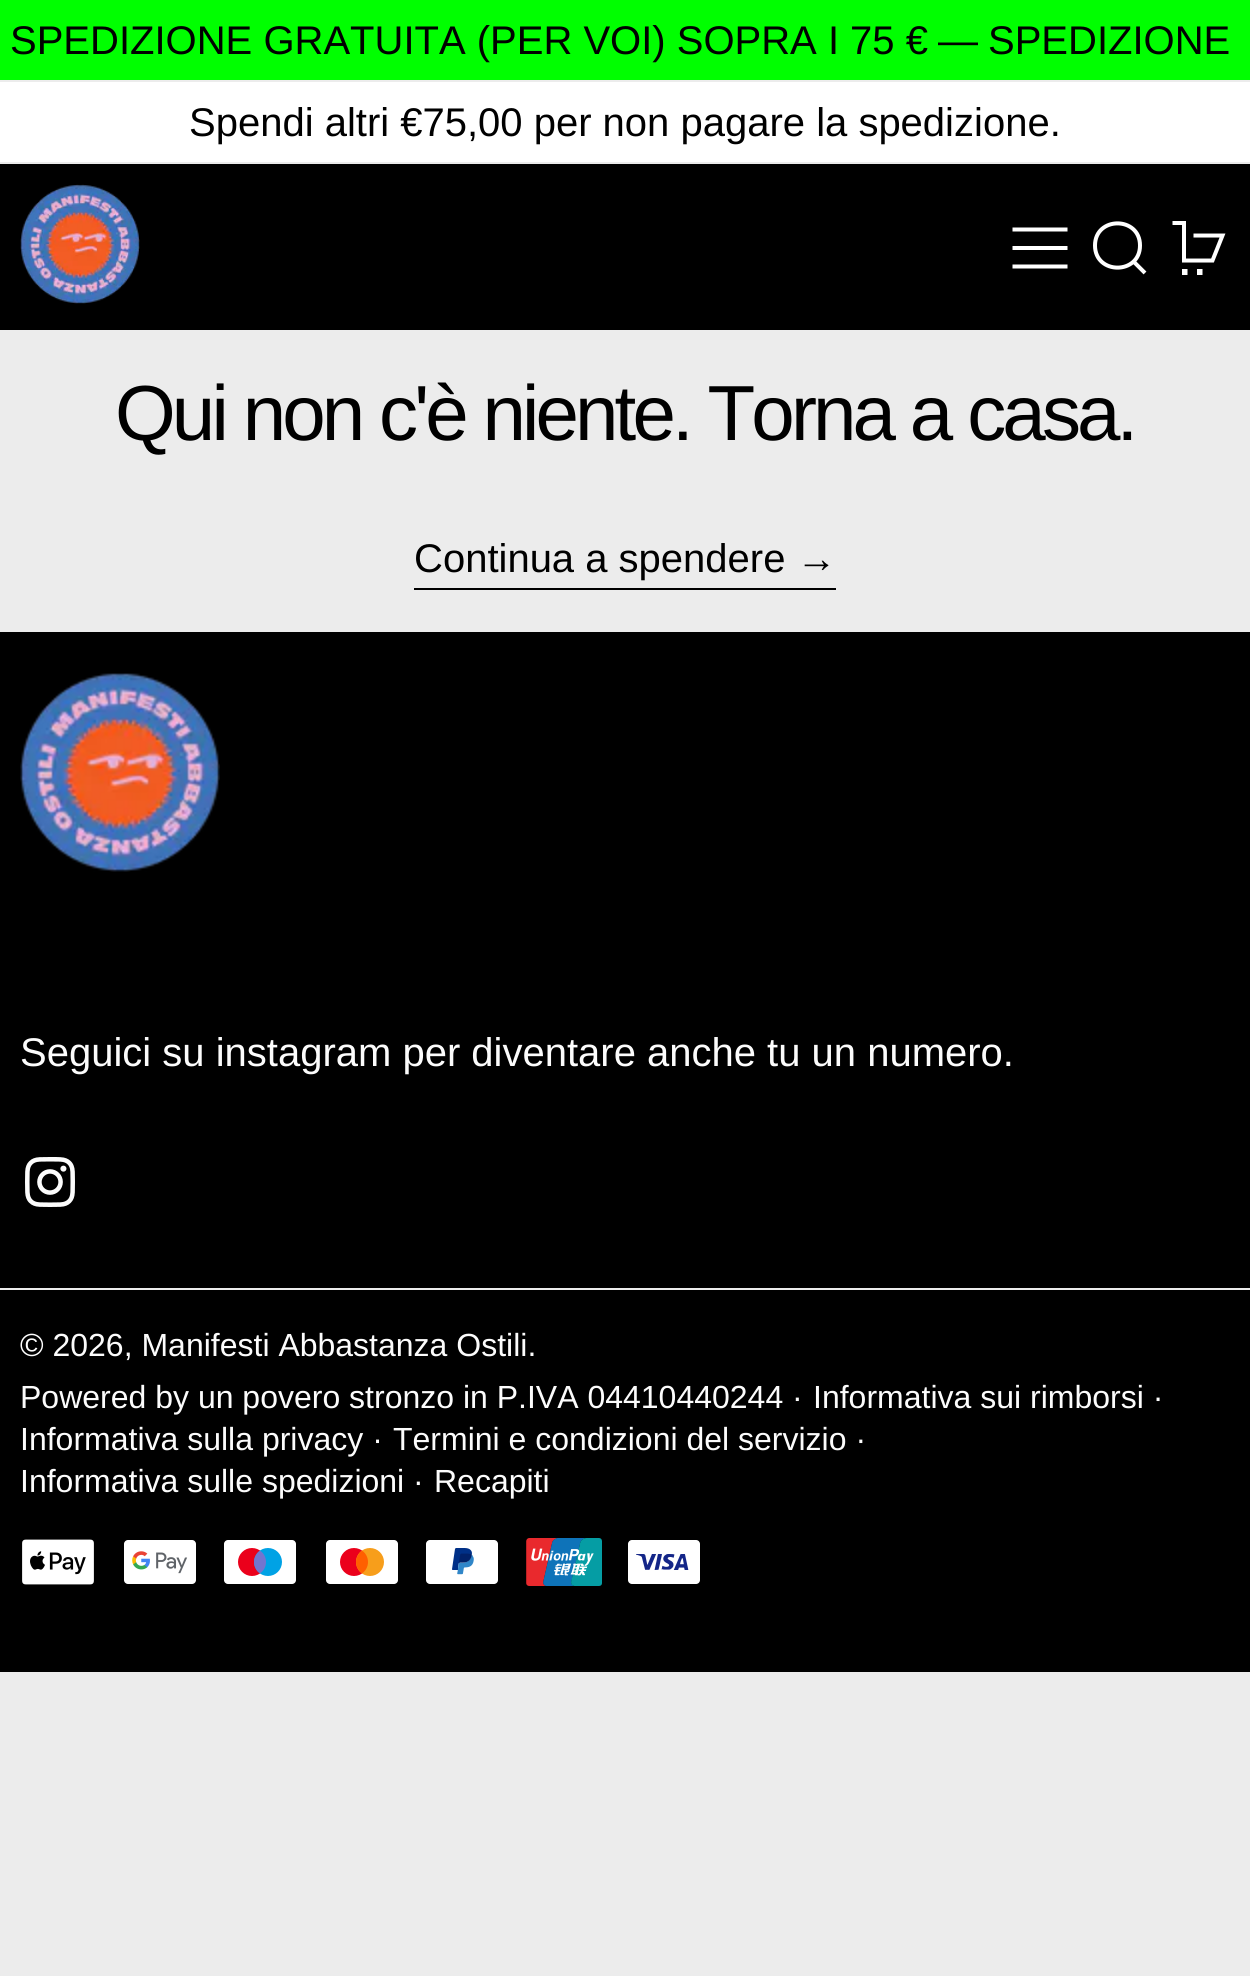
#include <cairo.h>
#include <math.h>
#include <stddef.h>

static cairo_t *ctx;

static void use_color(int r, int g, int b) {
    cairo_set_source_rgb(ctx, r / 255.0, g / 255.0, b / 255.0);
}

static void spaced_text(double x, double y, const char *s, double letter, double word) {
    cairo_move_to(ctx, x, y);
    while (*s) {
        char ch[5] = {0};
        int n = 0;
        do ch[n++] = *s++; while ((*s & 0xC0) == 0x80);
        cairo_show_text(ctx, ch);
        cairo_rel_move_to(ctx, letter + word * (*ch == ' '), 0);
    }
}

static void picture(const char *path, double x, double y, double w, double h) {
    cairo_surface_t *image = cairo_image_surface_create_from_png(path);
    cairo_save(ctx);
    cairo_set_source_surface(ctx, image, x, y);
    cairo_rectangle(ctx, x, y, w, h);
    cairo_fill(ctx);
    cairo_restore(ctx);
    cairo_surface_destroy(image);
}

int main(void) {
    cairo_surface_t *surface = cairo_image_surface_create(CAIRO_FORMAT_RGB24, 1250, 1976);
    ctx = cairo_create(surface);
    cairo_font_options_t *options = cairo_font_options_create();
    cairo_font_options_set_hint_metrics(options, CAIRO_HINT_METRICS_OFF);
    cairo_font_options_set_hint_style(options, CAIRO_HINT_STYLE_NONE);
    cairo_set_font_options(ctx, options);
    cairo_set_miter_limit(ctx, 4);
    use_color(236, 236, 236);
    cairo_paint(ctx);
    use_color(0, 255, 0);
    cairo_rectangle(ctx, 0, 0, 1250, 80);
    cairo_fill(ctx);
    cairo_select_font_face(ctx, "Liberation Sans", CAIRO_FONT_SLANT_NORMAL, CAIRO_FONT_WEIGHT_NORMAL);
    cairo_set_font_size(ctx, 40);
    use_color(0, 0, 0);
    cairo_move_to(ctx, 10, 54);
    cairo_show_text(ctx, "SPEDIZIONE GRATUITA (PER VOI) SOPRA I 75 €");
    cairo_move_to(ctx, 938, 54);
    cairo_show_text(ctx, "—");
    cairo_move_to(ctx, 988, 54);
    cairo_show_text(ctx, "SPEDIZIONE");
    use_color(255, 255, 255);
    cairo_rectangle(ctx, 0, 82, 1250, 80);
    cairo_fill(ctx);
    use_color(0, 0, 0);
    cairo_move_to(ctx, 189, 136);
    cairo_show_text(ctx, "Spendi altri €75,00 per non pagare la spedizione.");
    cairo_rectangle(ctx, 0, 164, 1250, 166);
    cairo_fill(ctx);
    picture("img1.png", 20, 184, 120, 120);
    cairo_new_path(ctx);
    cairo_move_to(ctx, 1012.5, 229.5);
    cairo_line_to(ctx, 1067.5, 229.5);
    cairo_move_to(ctx, 1012.5, 248);
    cairo_line_to(ctx, 1067.5, 248);
    cairo_move_to(ctx, 1012.5, 266.5);
    cairo_line_to(ctx, 1067.5, 266.5);
    use_color(255, 255, 255);
    cairo_set_line_width(ctx, 4);
    cairo_stroke(ctx);
    cairo_new_path(ctx);
    cairo_move_to(ctx, 1095, 245.5);
    cairo_curve_to(ctx, 1095, 275, 1140, 275, 1140, 245.5);
    cairo_curve_to(ctx, 1140, 216, 1095, 216, 1095, 245.5);
    cairo_close_path(ctx);
    cairo_move_to(ctx, 1133.5, 261.5);
    cairo_line_to(ctx, 1145, 273);
    cairo_stroke(ctx);
    cairo_new_path(ctx);
    cairo_move_to(ctx, 1172.5, 223);
    cairo_line_to(ctx, 1184, 223);
    cairo_line_to(ctx, 1184, 260.5);
    cairo_line_to(ctx, 1212.5, 260.5);
    cairo_line_to(ctx, 1222.5, 235.5);
    cairo_line_to(ctx, 1193.5, 235.5);
    cairo_move_to(ctx, 1184, 273);
    cairo_line_to(ctx, 1184, 271);
    cairo_line_to(ctx, 1185.5, 271);
    cairo_line_to(ctx, 1185.5, 273);
    cairo_close_path(ctx);
    cairo_move_to(ctx, 1199, 273);
    cairo_line_to(ctx, 1199, 271);
    cairo_line_to(ctx, 1200.5, 271);
    cairo_line_to(ctx, 1200.5, 273);
    cairo_close_path(ctx);
    cairo_stroke(ctx);
    cairo_set_font_size(ctx, 78.1);
    use_color(0, 0, 0);
    spaced_text(115, 440, "Qui non c'è niente. Torna a casa.", -3.9, 0);
    cairo_rectangle(ctx, 414, 588, 422, 2);
    cairo_fill(ctx);
    cairo_set_font_size(ctx, 40);
    cairo_move_to(ctx, 414, 572);
    cairo_show_text(ctx, "Continua a spendere →");
    cairo_rectangle(ctx, 0, 1290, 1250, 382);
    cairo_fill(ctx);
    cairo_rectangle(ctx, 0, 632, 1250, 656);
    cairo_fill(ctx);
    picture("img2.png", 20, 673, 200, 199);
    use_color(252, 252, 252);
    cairo_move_to(ctx, 20, 1066);
    cairo_show_text(ctx, "Seguici su instagram per diventare anche tu un numero.");
    picture("img3.png", 25, 1157, 50, 50);
    cairo_set_font_size(ctx, 32);
    cairo_move_to(ctx, 20, 1356);
    cairo_show_text(ctx, "© 2026, Manifesti Abbastanza Ostili.");
    cairo_move_to(ctx, 20, 1408);
    cairo_show_text(ctx, "Powered by un povero stronzo in P.IVA 04410440244 ·");
    cairo_move_to(ctx, 813, 1408);
    cairo_show_text(ctx, "Informativa sui rimborsi ·");
    cairo_move_to(ctx, 20, 1450);
    cairo_show_text(ctx, "Informativa sulla privacy ·");
    cairo_move_to(ctx, 393, 1450);
    cairo_show_text(ctx, "Termini e condizioni del servizio ·");
    cairo_move_to(ctx, 20, 1492);
    cairo_show_text(ctx, "Informativa sulle spedizioni ·");
    cairo_move_to(ctx, 434, 1492);
    cairo_show_text(ctx, "Recapiti");
    picture("img4.png", 22, 1539, 72, 46);
    picture("img5.png", 124, 1540, 72, 44);
    picture("img6.png", 224, 1540, 72, 44);
    picture("img7.png", 326, 1540, 72, 44);
    picture("img8.png", 426, 1540, 72, 44);
    picture("img9.png", 526, 1538, 76, 48);
    picture("img10.png", 628, 1540, 72, 44);
    cairo_surface_write_to_png(surface, "result.png");
    cairo_font_options_destroy(options);
    cairo_destroy(ctx);
    cairo_surface_destroy(surface);
    return 0;
}
